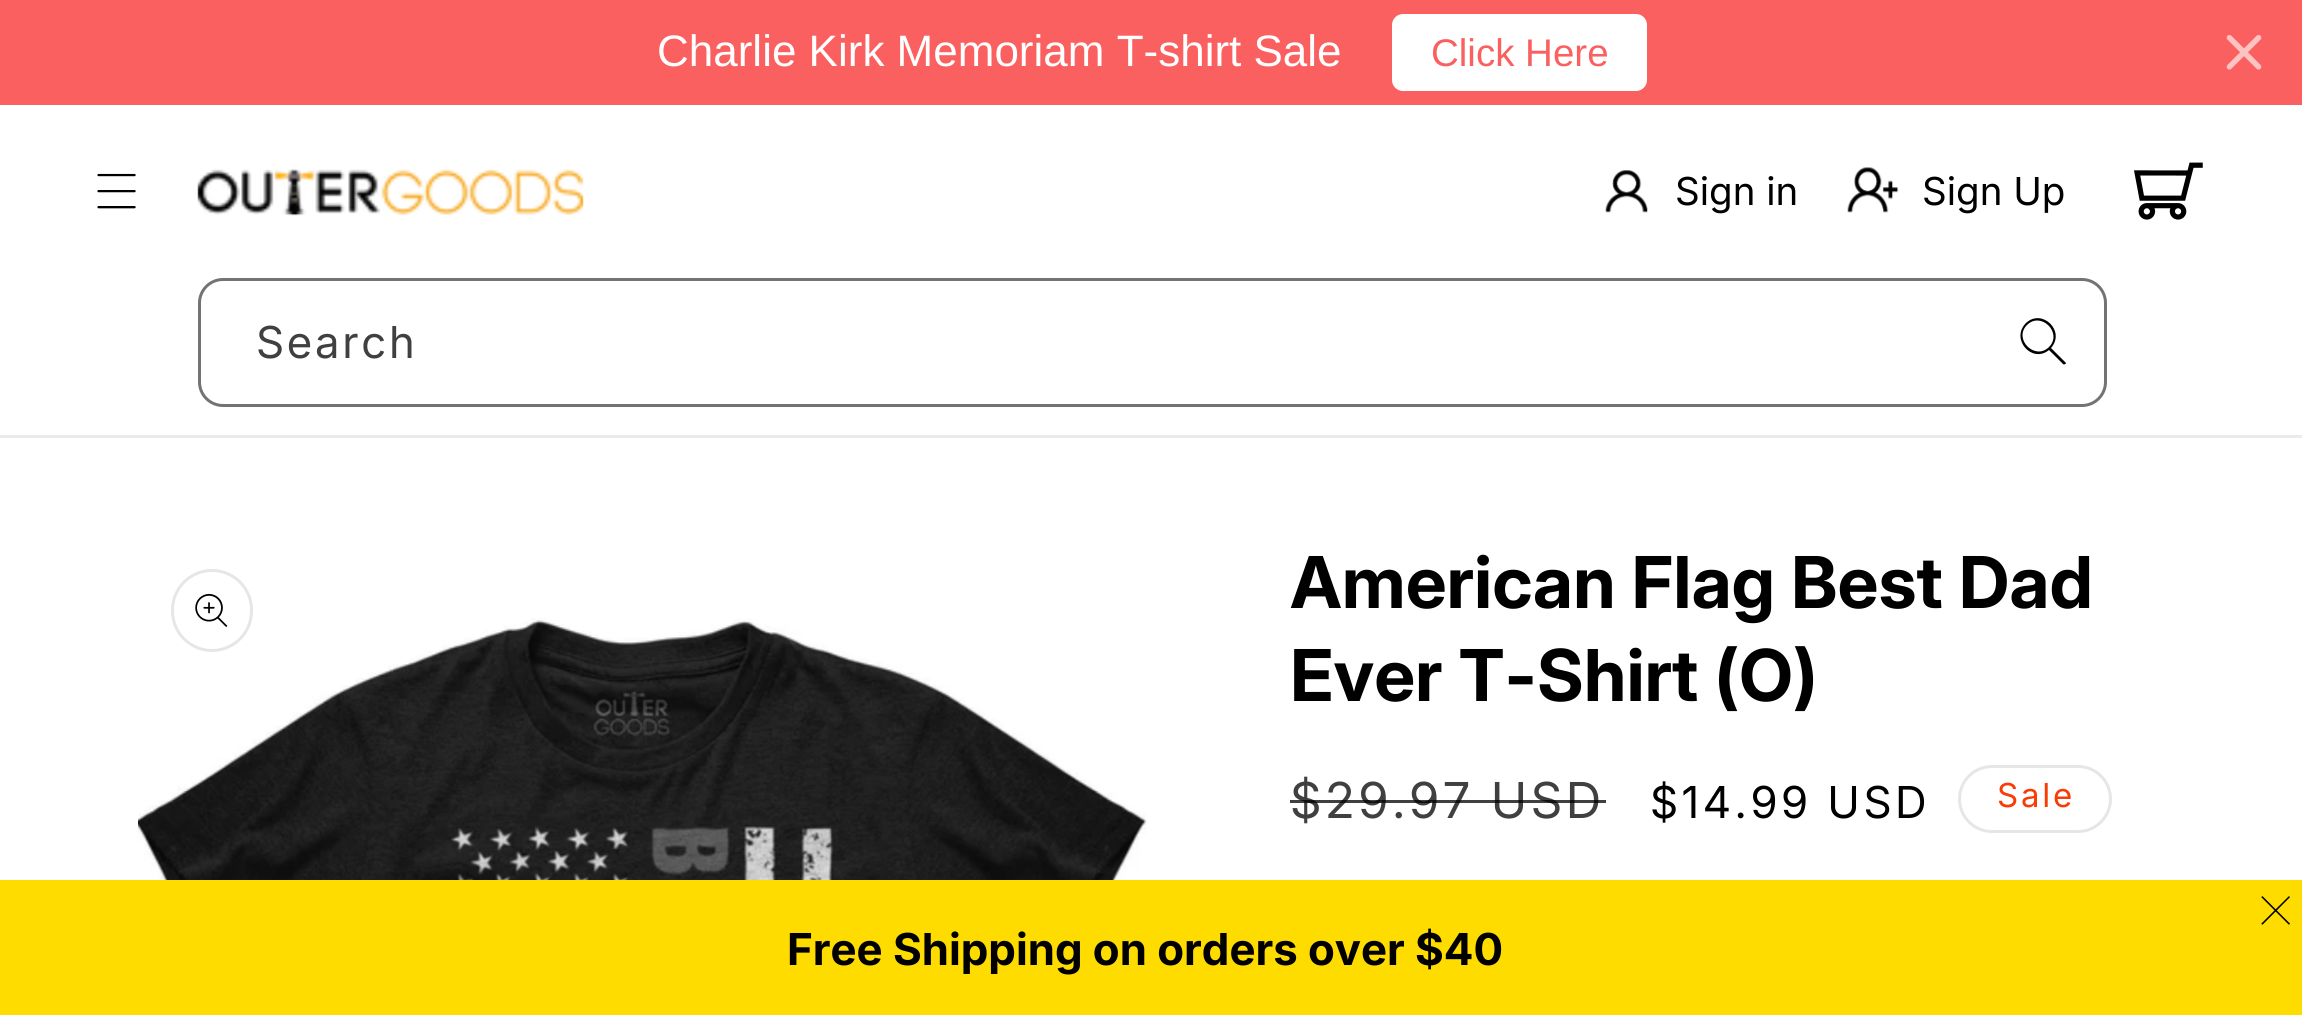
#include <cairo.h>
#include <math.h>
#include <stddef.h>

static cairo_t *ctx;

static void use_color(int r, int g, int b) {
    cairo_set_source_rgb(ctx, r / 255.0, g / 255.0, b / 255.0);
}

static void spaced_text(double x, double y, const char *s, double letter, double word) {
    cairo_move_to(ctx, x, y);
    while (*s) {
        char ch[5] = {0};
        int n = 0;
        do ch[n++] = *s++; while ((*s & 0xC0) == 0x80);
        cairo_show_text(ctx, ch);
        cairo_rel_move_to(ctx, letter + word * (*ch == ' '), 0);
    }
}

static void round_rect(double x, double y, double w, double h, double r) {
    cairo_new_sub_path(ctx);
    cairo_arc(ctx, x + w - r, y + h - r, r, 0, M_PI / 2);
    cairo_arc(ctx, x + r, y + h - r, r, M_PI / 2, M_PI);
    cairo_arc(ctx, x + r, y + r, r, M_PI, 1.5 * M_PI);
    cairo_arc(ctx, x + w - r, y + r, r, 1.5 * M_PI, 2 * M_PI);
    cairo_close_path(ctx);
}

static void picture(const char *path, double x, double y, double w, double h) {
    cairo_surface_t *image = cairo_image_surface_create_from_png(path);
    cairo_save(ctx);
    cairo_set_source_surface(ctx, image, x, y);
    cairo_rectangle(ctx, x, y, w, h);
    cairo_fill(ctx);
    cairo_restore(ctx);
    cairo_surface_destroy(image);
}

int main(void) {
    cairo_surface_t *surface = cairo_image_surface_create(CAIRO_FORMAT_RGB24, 2302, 1015);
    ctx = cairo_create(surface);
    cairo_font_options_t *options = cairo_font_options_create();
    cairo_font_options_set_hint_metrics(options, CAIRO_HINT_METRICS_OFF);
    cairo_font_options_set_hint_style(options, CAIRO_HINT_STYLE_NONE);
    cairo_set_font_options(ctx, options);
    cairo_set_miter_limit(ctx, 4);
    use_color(255, 255, 255);
    cairo_paint(ctx);
    use_color(251, 96, 96);
    cairo_rectangle(ctx, 0, 0, 2302, 105);
    cairo_fill(ctx);
    cairo_select_font_face(ctx, "Liberation Sans", CAIRO_FONT_SLANT_NORMAL, CAIRO_FONT_WEIGHT_NORMAL);
    cairo_set_font_size(ctx, 44);
    use_color(255, 255, 255);
    cairo_move_to(ctx, 657, 66);
    cairo_show_text(ctx, "Charlie Kirk Memoriam T-shirt Sale");
    round_rect(1392, 14, 255, 77, 11);
    cairo_fill(ctx);
    cairo_set_font_size(ctx, 38.5);
    use_color(251, 96, 96);
    cairo_move_to(ctx, 1431, 66);
    cairo_show_text(ctx, "Click Here");
    picture("img1.png", 2226, 35, 36, 35);
    use_color(235, 235, 235);
    cairo_rectangle(ctx, 0, 435, 2302, 3);
    cairo_fill(ctx);
    picture("img2.png", 97, 173, 39, 36);
    picture("img3.png", 197, 169, 387, 47);
    picture("img4.png", 1605, 170, 43, 43);
    cairo_select_font_face(ctx, "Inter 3", CAIRO_FONT_SLANT_NORMAL, CAIRO_FONT_WEIGHT_NORMAL);
    use_color(0, 0, 0);
    cairo_move_to(ctx, 1675, 205);
    cairo_show_text(ctx, "Sign in");
    picture("img5.png", 1847, 167, 52, 46);
    cairo_move_to(ctx, 1922, 205);
    cairo_show_text(ctx, "Sign Up");
    picture("img6.png", 2134, 162, 69, 58);
    cairo_set_fill_rule(ctx, CAIRO_FILL_RULE_EVEN_ODD);
    cairo_new_path(ctx);
    cairo_move_to(ctx, 2049, 347);
    cairo_curve_to(ctx, 2035, 361, 2013, 339, 2027, 325);
    cairo_curve_to(ctx, 2041, 311, 2063, 333, 2049, 347);
    cairo_move_to(ctx, 2049, 350);
    cairo_curve_to(ctx, 2032, 364, 2010, 339, 2026, 323);
    cairo_curve_to(ctx, 2042, 308, 2066, 331, 2051, 348);
    cairo_line_to(ctx, 2066, 363);
    cairo_curve_to(ctx, 2066, 364, 2064, 365, 2063, 364);
    cairo_close_path(ctx);
    cairo_fill(ctx);
    round_rect(199.5, 279.5, 1906, 126, 23.5);
    use_color(115, 115, 115);
    cairo_set_line_width(ctx, 3);
    cairo_stroke(ctx);
    cairo_select_font_face(ctx, "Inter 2", CAIRO_FONT_SLANT_NORMAL, CAIRO_FONT_WEIGHT_NORMAL);
    cairo_set_font_size(ctx, 44);
    use_color(64, 64, 64);
    spaced_text(256, 358, "Search", 2.75, 0);
    picture("img8.png", 138, 618, 1009, 262);
    round_rect(172.5, 570.5, 79, 80, 39.5);
    use_color(230, 230, 230);
    cairo_stroke(ctx);
    picture("img7.png", 195, 593, 33, 34);
    cairo_select_font_face(ctx, "Inter", CAIRO_FONT_SLANT_NORMAL, CAIRO_FONT_WEIGHT_BOLD);
    cairo_set_font_size(ctx, 71.5);
    use_color(0, 0, 0);
    cairo_move_to(ctx, 1290, 608);
    cairo_show_text(ctx, "American Flag Best Dad");
    cairo_move_to(ctx, 1290, 701);
    cairo_show_text(ctx, "Ever T-Shirt (O)");
    cairo_select_font_face(ctx, "Inter", CAIRO_FONT_SLANT_NORMAL, CAIRO_FONT_WEIGHT_NORMAL);
    cairo_set_font_size(ctx, 49.5);
    use_color(64, 64, 64);
    spaced_text(1290, 818, "$29.97 USD", 3.5, 0);
    cairo_set_source_rgba(ctx, 0, 0, 0, 0.75);
    cairo_rectangle(ctx, 1290, 800, 316, 3);
    cairo_fill(ctx);
    cairo_select_font_face(ctx, "Inter 2", CAIRO_FONT_SLANT_NORMAL, CAIRO_FONT_WEIGHT_NORMAL);
    cairo_set_font_size(ctx, 44);
    use_color(0, 0, 0);
    spaced_text(1650, 818, "$14.99 USD", 3.5, 0);
    round_rect(1959.5, 766.5, 151, 65, 32.5);
    use_color(230, 230, 230);
    cairo_stroke(ctx);
    cairo_select_font_face(ctx, "Inter 3", CAIRO_FONT_SLANT_NORMAL, CAIRO_FONT_WEIGHT_NORMAL);
    cairo_set_font_size(ctx, 33);
    use_color(250, 59, 3);
    spaced_text(1997, 807, "Sale", 2.75, 0);
    use_color(255, 220, 0);
    cairo_rectangle(ctx, 0, 880, 2302, 135);
    cairo_fill(ctx);
    cairo_select_font_face(ctx, "Inter Thin", CAIRO_FONT_SLANT_NORMAL, CAIRO_FONT_WEIGHT_NORMAL);
    cairo_set_font_size(ctx, 69);
    use_color(0, 0, 0);
    cairo_move_to(ctx, 2255, 930);
    cairo_show_text(ctx, "×");
    cairo_select_font_face(ctx, "Inter 2", CAIRO_FONT_SLANT_NORMAL, CAIRO_FONT_WEIGHT_BOLD);
    cairo_set_font_size(ctx, 44);
    cairo_move_to(ctx, 787, 965);
    cairo_show_text(ctx, "Free Shipping on orders over $40");
    cairo_surface_write_to_png(surface, "result.png");
    cairo_font_options_destroy(options);
    cairo_destroy(ctx);
    cairo_surface_destroy(surface);
    return 0;
}
